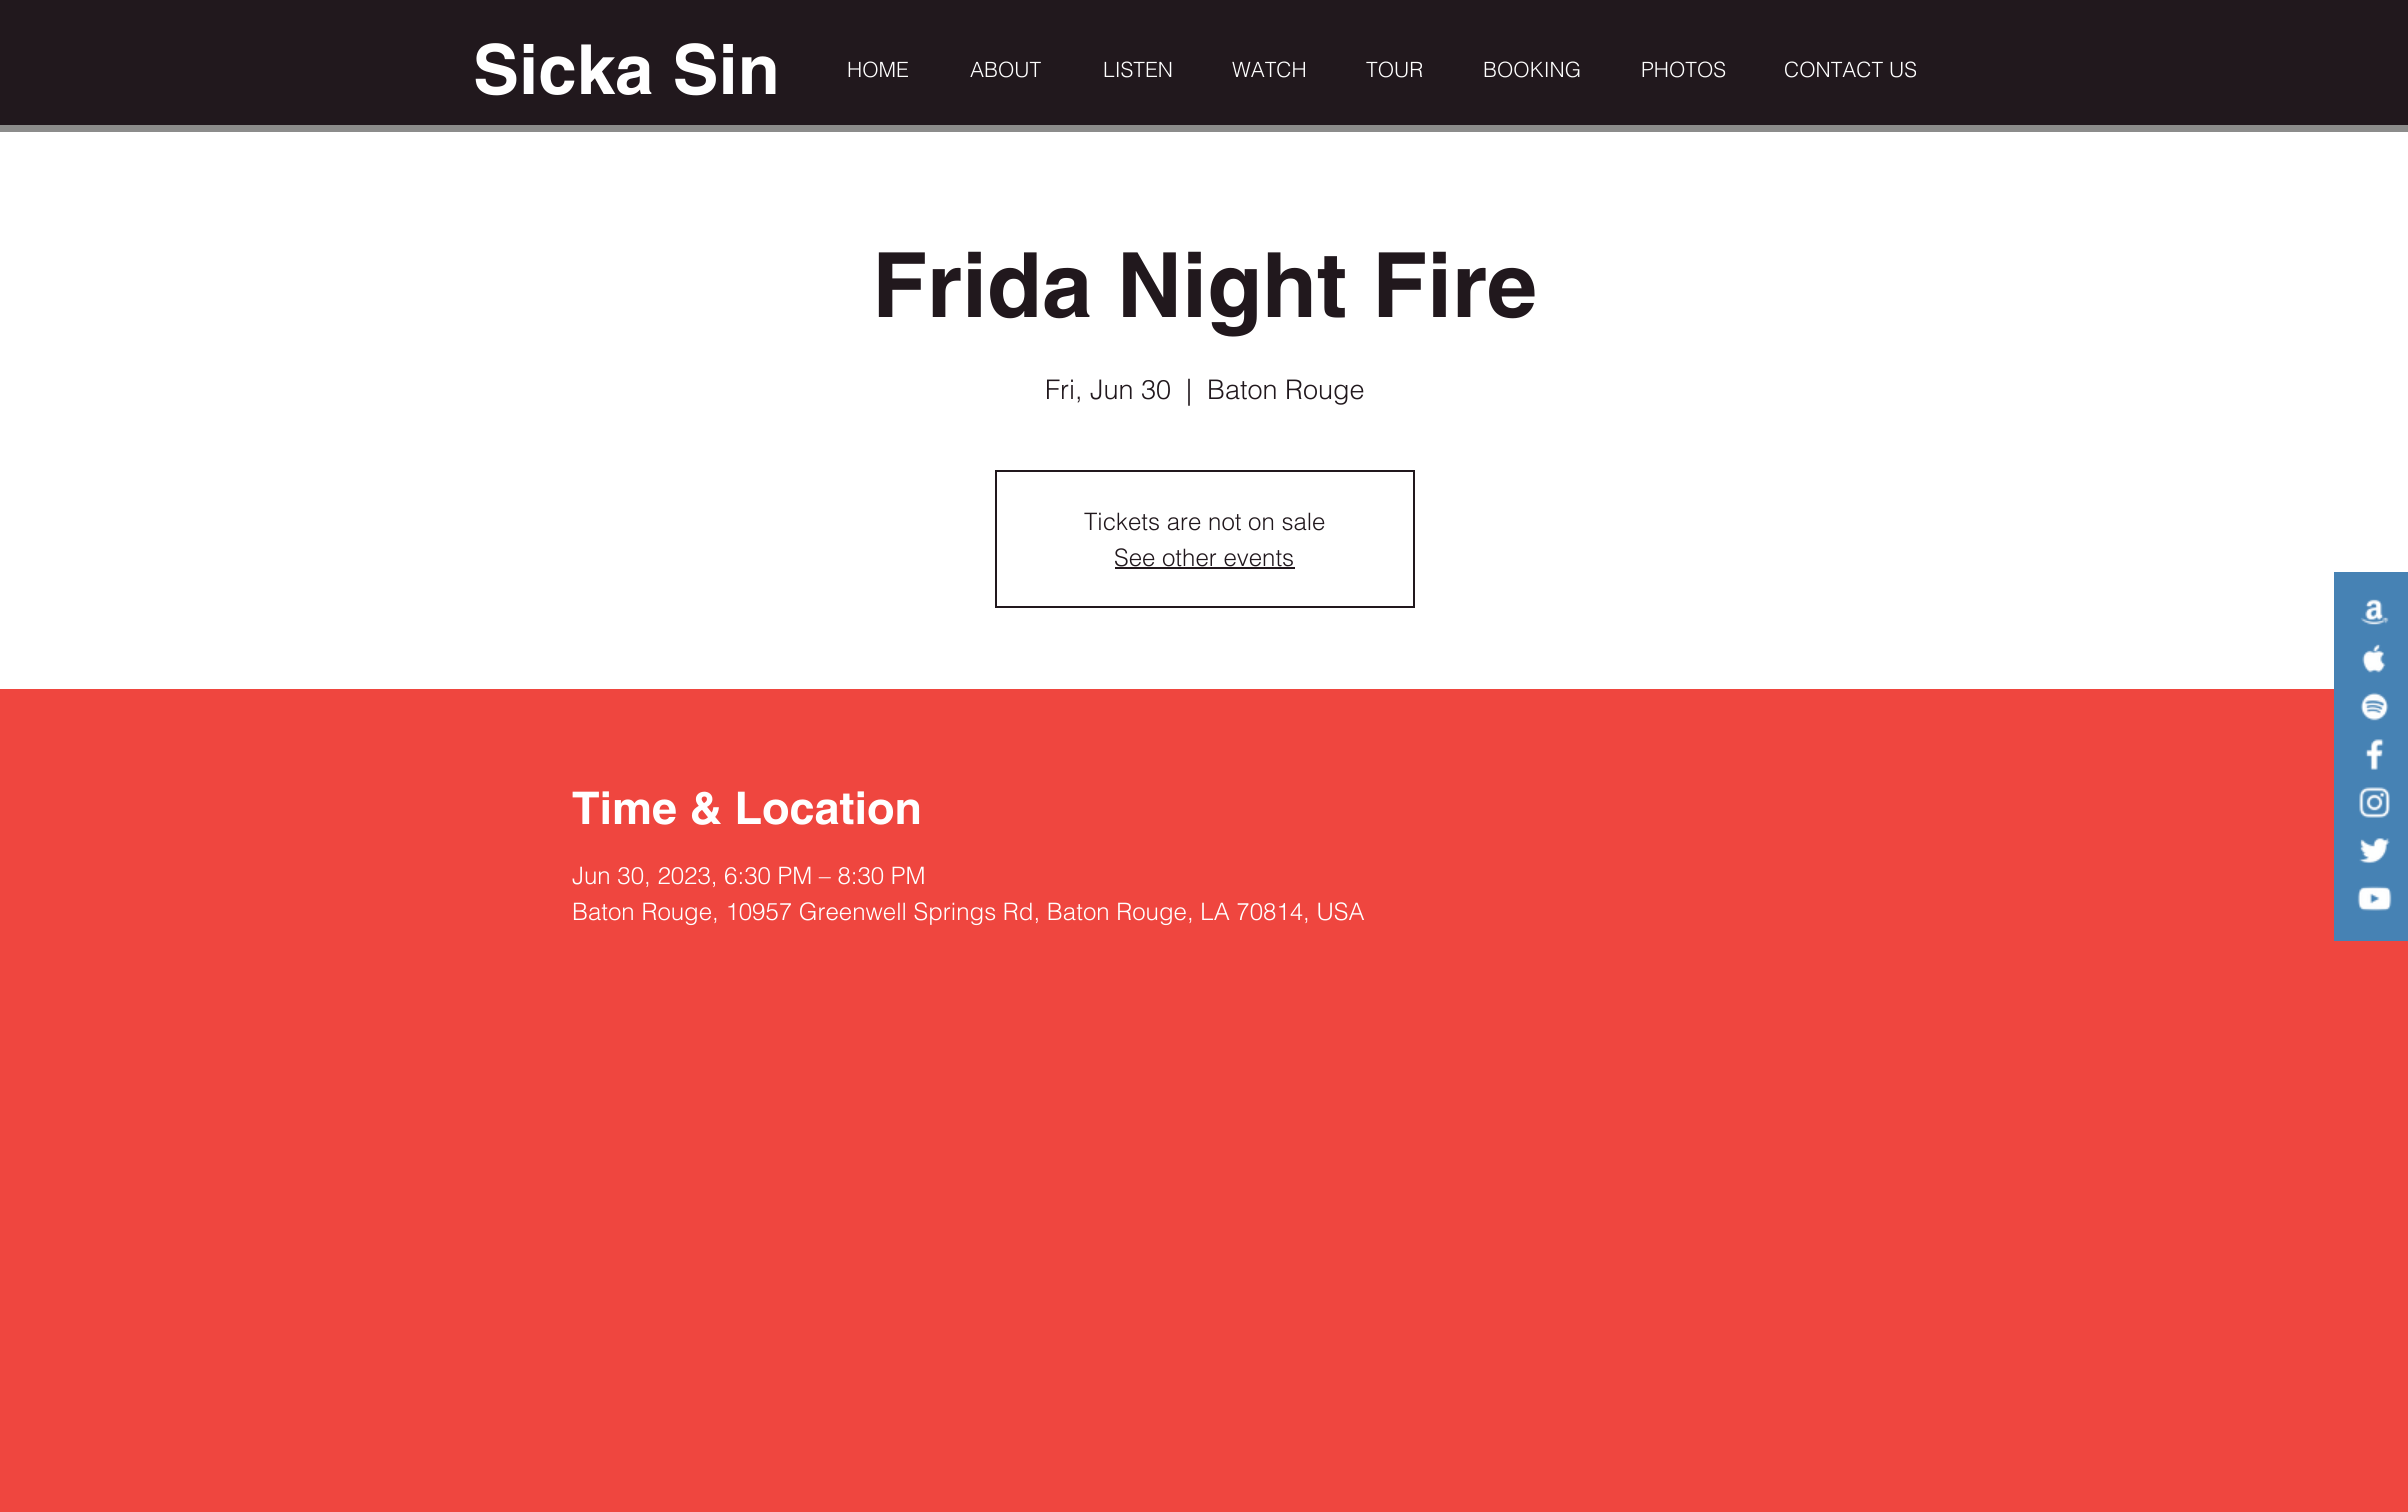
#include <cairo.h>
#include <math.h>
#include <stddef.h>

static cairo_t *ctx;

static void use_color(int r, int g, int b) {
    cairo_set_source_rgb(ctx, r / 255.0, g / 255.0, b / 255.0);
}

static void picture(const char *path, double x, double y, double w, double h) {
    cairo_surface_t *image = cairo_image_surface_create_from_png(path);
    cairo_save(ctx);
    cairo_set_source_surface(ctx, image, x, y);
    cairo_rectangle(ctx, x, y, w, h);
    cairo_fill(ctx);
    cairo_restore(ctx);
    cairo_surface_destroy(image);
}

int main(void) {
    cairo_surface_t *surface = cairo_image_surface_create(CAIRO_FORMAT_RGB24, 2408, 1512);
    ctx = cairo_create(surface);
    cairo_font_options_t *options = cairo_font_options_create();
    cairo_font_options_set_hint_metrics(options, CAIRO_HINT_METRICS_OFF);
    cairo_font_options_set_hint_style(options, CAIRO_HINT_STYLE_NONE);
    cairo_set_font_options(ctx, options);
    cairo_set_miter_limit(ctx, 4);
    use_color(33, 24, 29);
    cairo_paint(ctx);
    cairo_select_font_face(ctx, "helvetica", CAIRO_FONT_SLANT_NORMAL, CAIRO_FONT_WEIGHT_BOLD);
    cairo_set_font_size(ctx, 69);
    use_color(255, 255, 255);
    cairo_move_to(ctx, 473, 94);
    cairo_show_text(ctx, "Sicka Sin");
    cairo_select_font_face(ctx, "helvetica Light", CAIRO_FONT_SLANT_NORMAL, CAIRO_FONT_WEIGHT_NORMAL);
    cairo_set_font_size(ctx, 21);
    cairo_move_to(ctx, 847, 77);
    cairo_show_text(ctx, "HOME");
    cairo_move_to(ctx, 970, 77);
    cairo_show_text(ctx, "ABOUT");
    cairo_move_to(ctx, 1103, 77);
    cairo_show_text(ctx, "LISTEN");
    cairo_move_to(ctx, 1232, 77);
    cairo_show_text(ctx, "WATCH");
    cairo_move_to(ctx, 1366, 77);
    cairo_show_text(ctx, "TOUR");
    cairo_move_to(ctx, 1483, 77);
    cairo_show_text(ctx, "BOOKING");
    cairo_move_to(ctx, 1641, 77);
    cairo_show_text(ctx, "PHOTOS");
    cairo_move_to(ctx, 1784, 77);
    cairo_show_text(ctx, "CONTACT US");
    use_color(140, 140, 139);
    cairo_rectangle(ctx, 0, 125, 2408, 7);
    cairo_fill(ctx);
    use_color(255, 255, 255);
    cairo_rectangle(ctx, 0, 132, 2408, 557);
    cairo_fill(ctx);
    cairo_select_font_face(ctx, "helvetica", CAIRO_FONT_SLANT_NORMAL, CAIRO_FONT_WEIGHT_BOLD);
    cairo_set_font_size(ctx, 90);
    use_color(33, 24, 29);
    cairo_move_to(ctx, 872, 317);
    cairo_show_text(ctx, "Frida Night Fire");
    cairo_select_font_face(ctx, "helvetica Light", CAIRO_FONT_SLANT_NORMAL, CAIRO_FONT_WEIGHT_NORMAL);
    cairo_set_font_size(ctx, 27);
    cairo_move_to(ctx, 1045, 399);
    cairo_show_text(ctx, "Fri, Jun 30");
    cairo_move_to(ctx, 1186, 399);
    cairo_show_text(ctx, "|");
    cairo_move_to(ctx, 1207, 399);
    cairo_show_text(ctx, "Baton Rouge");
    cairo_rectangle(ctx, 996, 471, 418, 136);
    cairo_stroke(ctx);
    cairo_set_font_size(ctx, 24);
    cairo_move_to(ctx, 1084, 530);
    cairo_show_text(ctx, "Tickets are not on sale");
    cairo_move_to(ctx, 1114, 566);
    cairo_show_text(ctx, "See other events");
    cairo_rectangle(ctx, 1115, 567, 180, 2);
    cairo_fill(ctx);
    use_color(239, 70, 63);
    cairo_rectangle(ctx, 0, 689, 2408, 823);
    cairo_fill(ctx);
    cairo_select_font_face(ctx, "helvetica", CAIRO_FONT_SLANT_NORMAL, CAIRO_FONT_WEIGHT_BOLD);
    cairo_set_font_size(ctx, 45);
    use_color(255, 255, 255);
    cairo_move_to(ctx, 572, 824);
    cairo_show_text(ctx, "Time & Location");
    cairo_select_font_face(ctx, "helvetica Light", CAIRO_FONT_SLANT_NORMAL, CAIRO_FONT_WEIGHT_NORMAL);
    cairo_set_font_size(ctx, 24);
    cairo_move_to(ctx, 572, 884);
    cairo_show_text(ctx, "Jun 30, 2023, 6:30 PM – 8:30 PM");
    cairo_move_to(ctx, 572, 920);
    cairo_show_text(ctx, "Baton Rouge, 10957 Greenwell Springs Rd, Baton Rouge, LA 70814, USA");
    use_color(70, 130, 180);
    cairo_rectangle(ctx, 2334, 572, 74, 369);
    cairo_fill(ctx);
    picture("img1.png", 2360, 599, 29, 26);
    picture("img2.png", 2362, 644, 24, 29);
    picture("img3.png", 2360, 692, 29, 29);
    picture("img4.png", 2365, 739, 19, 31);
    picture("img5.png", 2359, 787, 31, 31);
    picture("img6.png", 2359, 838, 31, 26);
    picture("img7.png", 2357, 886, 35, 25);
    cairo_surface_write_to_png(surface, "result.png");
    cairo_font_options_destroy(options);
    cairo_destroy(ctx);
    cairo_surface_destroy(surface);
    return 0;
}
